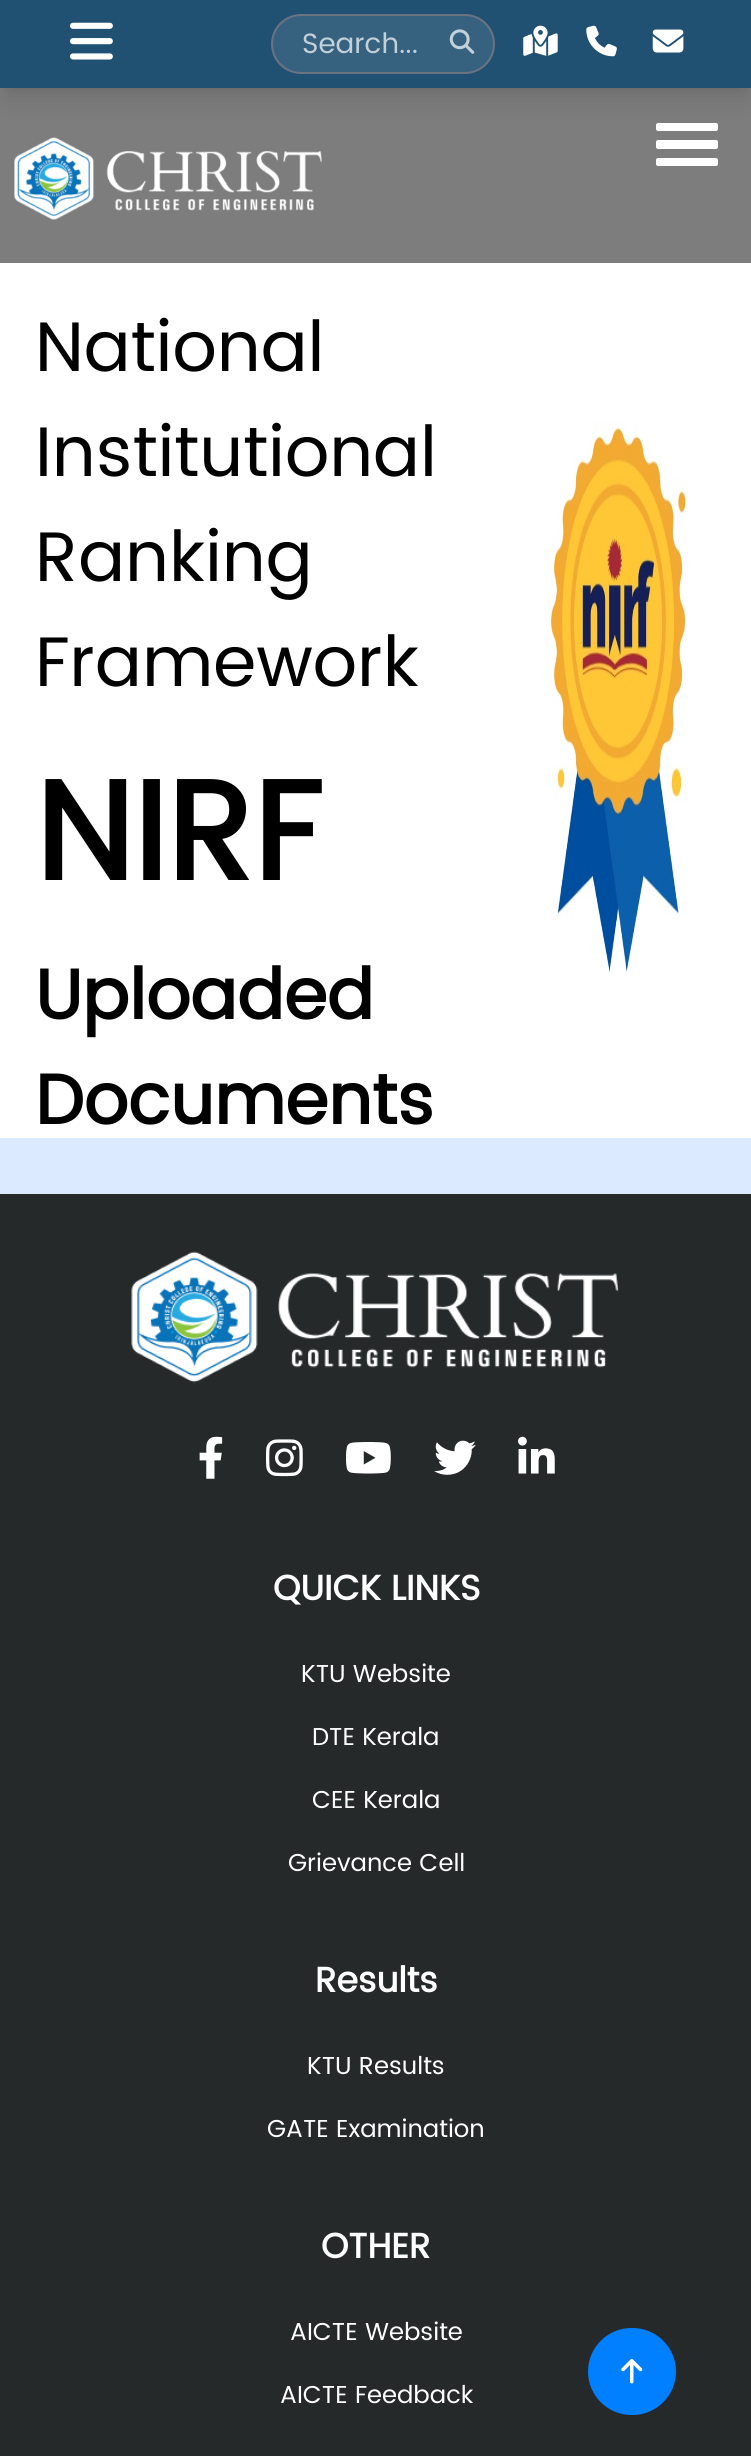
#include <cairo.h>
#include <math.h>
#include <stddef.h>

static cairo_t *ctx;

static void use_color(int r, int g, int b) {
    cairo_set_source_rgb(ctx, r / 255.0, g / 255.0, b / 255.0);
}

static void round_rect(double x, double y, double w, double h, double r) {
    cairo_new_sub_path(ctx);
    cairo_arc(ctx, x + w - r, y + h - r, r, 0, M_PI / 2);
    cairo_arc(ctx, x + r, y + h - r, r, M_PI / 2, M_PI);
    cairo_arc(ctx, x + r, y + r, r, M_PI, 1.5 * M_PI);
    cairo_arc(ctx, x + w - r, y + r, r, 1.5 * M_PI, 2 * M_PI);
    cairo_close_path(ctx);
}

static void shadow(double x, double y, double w, double h, double r, double blur, double alpha) {
    cairo_push_group_with_content(ctx, CAIRO_CONTENT_ALPHA);
    cairo_set_operator(ctx, CAIRO_OPERATOR_SOURCE);
    for (int i = 15; i >= -15 && fmin(w, h) + blur * i / 3 > 0; i -= 2) {
        double e = blur * i / 6;
        cairo_set_source_rgba(ctx, 0, 0, 0, alpha * erfc((i - 1) / 8.5) / 2);
        round_rect(x - e, y - e, w + 2 * e, h + 2 * e, fmax(0, fmin(r + e + blur * .6, fmin(w, h) / 2 + e)));
        cairo_fill(ctx);
    }
    cairo_pattern_t *soft = cairo_pop_group(ctx);
    cairo_mask(ctx, soft);
    cairo_pattern_destroy(soft);
}

static void picture(const char *path, double x, double y, double w, double h) {
    cairo_surface_t *image = cairo_image_surface_create_from_png(path);
    cairo_save(ctx);
    cairo_set_source_surface(ctx, image, x, y);
    cairo_rectangle(ctx, x, y, w, h);
    cairo_fill(ctx);
    cairo_restore(ctx);
    cairo_surface_destroy(image);
}

int main(void) {
    cairo_surface_t *surface = cairo_image_surface_create(CAIRO_FORMAT_RGB24, 751, 2456);
    ctx = cairo_create(surface);
    cairo_font_options_t *options = cairo_font_options_create();
    cairo_font_options_set_hint_metrics(options, CAIRO_HINT_METRICS_OFF);
    cairo_font_options_set_hint_style(options, CAIRO_HINT_STYLE_NONE);
    cairo_set_font_options(ctx, options);
    cairo_set_miter_limit(ctx, 4);
    use_color(255, 255, 255);
    cairo_paint(ctx);
    use_color(0, 0, 0);
    shadow(7, 14, 739, 74, 0, 5, 0.1);
    shadow(5, 23, 742, 77, 0, 13, 0.1);
    use_color(32, 80, 114);
    cairo_rectangle(ctx, 0, 0, 751, 88);
    cairo_fill(ctx);
    picture("img1.png", 70, 22, 43, 38);
    use_color(54, 98, 128);
    round_rect(272, 15, 222, 58, 29);
    cairo_fill_preserve(ctx);
    use_color(107, 114, 128);
    cairo_stroke(ctx);
    cairo_select_font_face(ctx, "Poppins", CAIRO_FONT_SLANT_NORMAL, CAIRO_FONT_WEIGHT_NORMAL);
    cairo_set_font_size(ctx, 28);
    use_color(195, 208, 217);
    cairo_move_to(ctx, 302, 53);
    cairo_show_text(ctx, "Search...");
    picture("img2.png", 449, 29, 26, 25);
    picture("img3.png", 523, 25, 35, 31);
    picture("img4.png", 586, 25, 31, 32);
    picture("img5.png", 652, 29, 32, 24);
    cairo_set_source_rgba(ctx, 0, 0, 0, 0.51);
    cairo_rectangle(ctx, 0, 88, 751, 175);
    cairo_fill(ctx);
    picture("img6.png", 14, 137, 308, 83);
    use_color(255, 255, 255);
    round_rect(656, 140, 62, 9, 2);
    cairo_fill(ctx);
    round_rect(656, 123, 62, 8, 2);
    cairo_fill(ctx);
    round_rect(656, 158, 62, 8, 2);
    cairo_fill(ctx);
    cairo_set_font_size(ctx, 70);
    use_color(0, 0, 0);
    cairo_move_to(ctx, 35, 371);
    cairo_show_text(ctx, "National");
    cairo_move_to(ctx, 35, 476);
    cairo_show_text(ctx, "Institutional");
    cairo_move_to(ctx, 35, 581);
    cairo_show_text(ctx, "Ranking");
    cairo_move_to(ctx, 35, 686);
    cairo_show_text(ctx, "Framework");
    cairo_select_font_face(ctx, "Poppins", CAIRO_FONT_SLANT_NORMAL, CAIRO_FONT_WEIGHT_BOLD);
    cairo_set_font_size(ctx, 140);
    cairo_move_to(ctx, 35, 880);
    cairo_show_text(ctx, "NIRF");
    cairo_set_font_size(ctx, 70);
    cairo_move_to(ctx, 35, 1019);
    cairo_show_text(ctx, "Uploaded");
    cairo_move_to(ctx, 35, 1124);
    cairo_show_text(ctx, "Documents");
    picture("img7.png", 547, 420, 140, 555);
    use_color(219, 234, 254);
    cairo_rectangle(ctx, 0, 1138, 751, 56);
    cairo_fill(ctx);
    use_color(37, 41, 41);
    cairo_rectangle(ctx, 0, 1194, 751, 1262);
    cairo_fill(ctx);
    picture("img8.png", 131, 1251, 488, 132);
    picture("img9.png", 199, 1436, 24, 43);
    picture("img10.png", 266, 1439, 37, 38);
    picture("img11.png", 346, 1442, 45, 32);
    picture("img12.png", 434, 1440, 42, 35);
    picture("img13.png", 518, 1436, 37, 38);
    cairo_set_font_size(ctx, 35);
    use_color(255, 255, 255);
    cairo_move_to(ctx, 273, 1600);
    cairo_show_text(ctx, "QUICK LINKS");
    cairo_select_font_face(ctx, "Poppins", CAIRO_FONT_SLANT_NORMAL, CAIRO_FONT_WEIGHT_NORMAL);
    cairo_set_font_size(ctx, 24.5);
    cairo_move_to(ctx, 301, 1682);
    cairo_show_text(ctx, "KTU Website");
    cairo_move_to(ctx, 312, 1745);
    cairo_show_text(ctx, "DTE Kerala");
    cairo_move_to(ctx, 312, 1808);
    cairo_show_text(ctx, "CEE Kerala");
    cairo_move_to(ctx, 288, 1871);
    cairo_show_text(ctx, "Grievance Cell");
    cairo_select_font_face(ctx, "Poppins", CAIRO_FONT_SLANT_NORMAL, CAIRO_FONT_WEIGHT_BOLD);
    cairo_set_font_size(ctx, 35);
    cairo_move_to(ctx, 315, 1992);
    cairo_show_text(ctx, "Results");
    cairo_select_font_face(ctx, "Poppins", CAIRO_FONT_SLANT_NORMAL, CAIRO_FONT_WEIGHT_NORMAL);
    cairo_set_font_size(ctx, 24.5);
    cairo_move_to(ctx, 307, 2074);
    cairo_show_text(ctx, "KTU Results");
    cairo_move_to(ctx, 267, 2137);
    cairo_show_text(ctx, "GATE Examination");
    cairo_select_font_face(ctx, "Poppins", CAIRO_FONT_SLANT_NORMAL, CAIRO_FONT_WEIGHT_BOLD);
    cairo_set_font_size(ctx, 35);
    cairo_move_to(ctx, 321, 2258);
    cairo_show_text(ctx, "OTHER");
    cairo_select_font_face(ctx, "Poppins", CAIRO_FONT_SLANT_NORMAL, CAIRO_FONT_WEIGHT_NORMAL);
    cairo_set_font_size(ctx, 24.5);
    cairo_move_to(ctx, 290, 2340);
    cairo_show_text(ctx, "AICTE Website");
    cairo_move_to(ctx, 280, 2403);
    cairo_show_text(ctx, "AICTE Feedback");
    use_color(0, 127, 255);
    round_rect(588, 2328, 88, 87, 43.5);
    cairo_fill(ctx);
    picture("img14.png", 621, 2359, 22, 25);
    cairo_surface_write_to_png(surface, "result.png");
    cairo_font_options_destroy(options);
    cairo_destroy(ctx);
    cairo_surface_destroy(surface);
    return 0;
}
